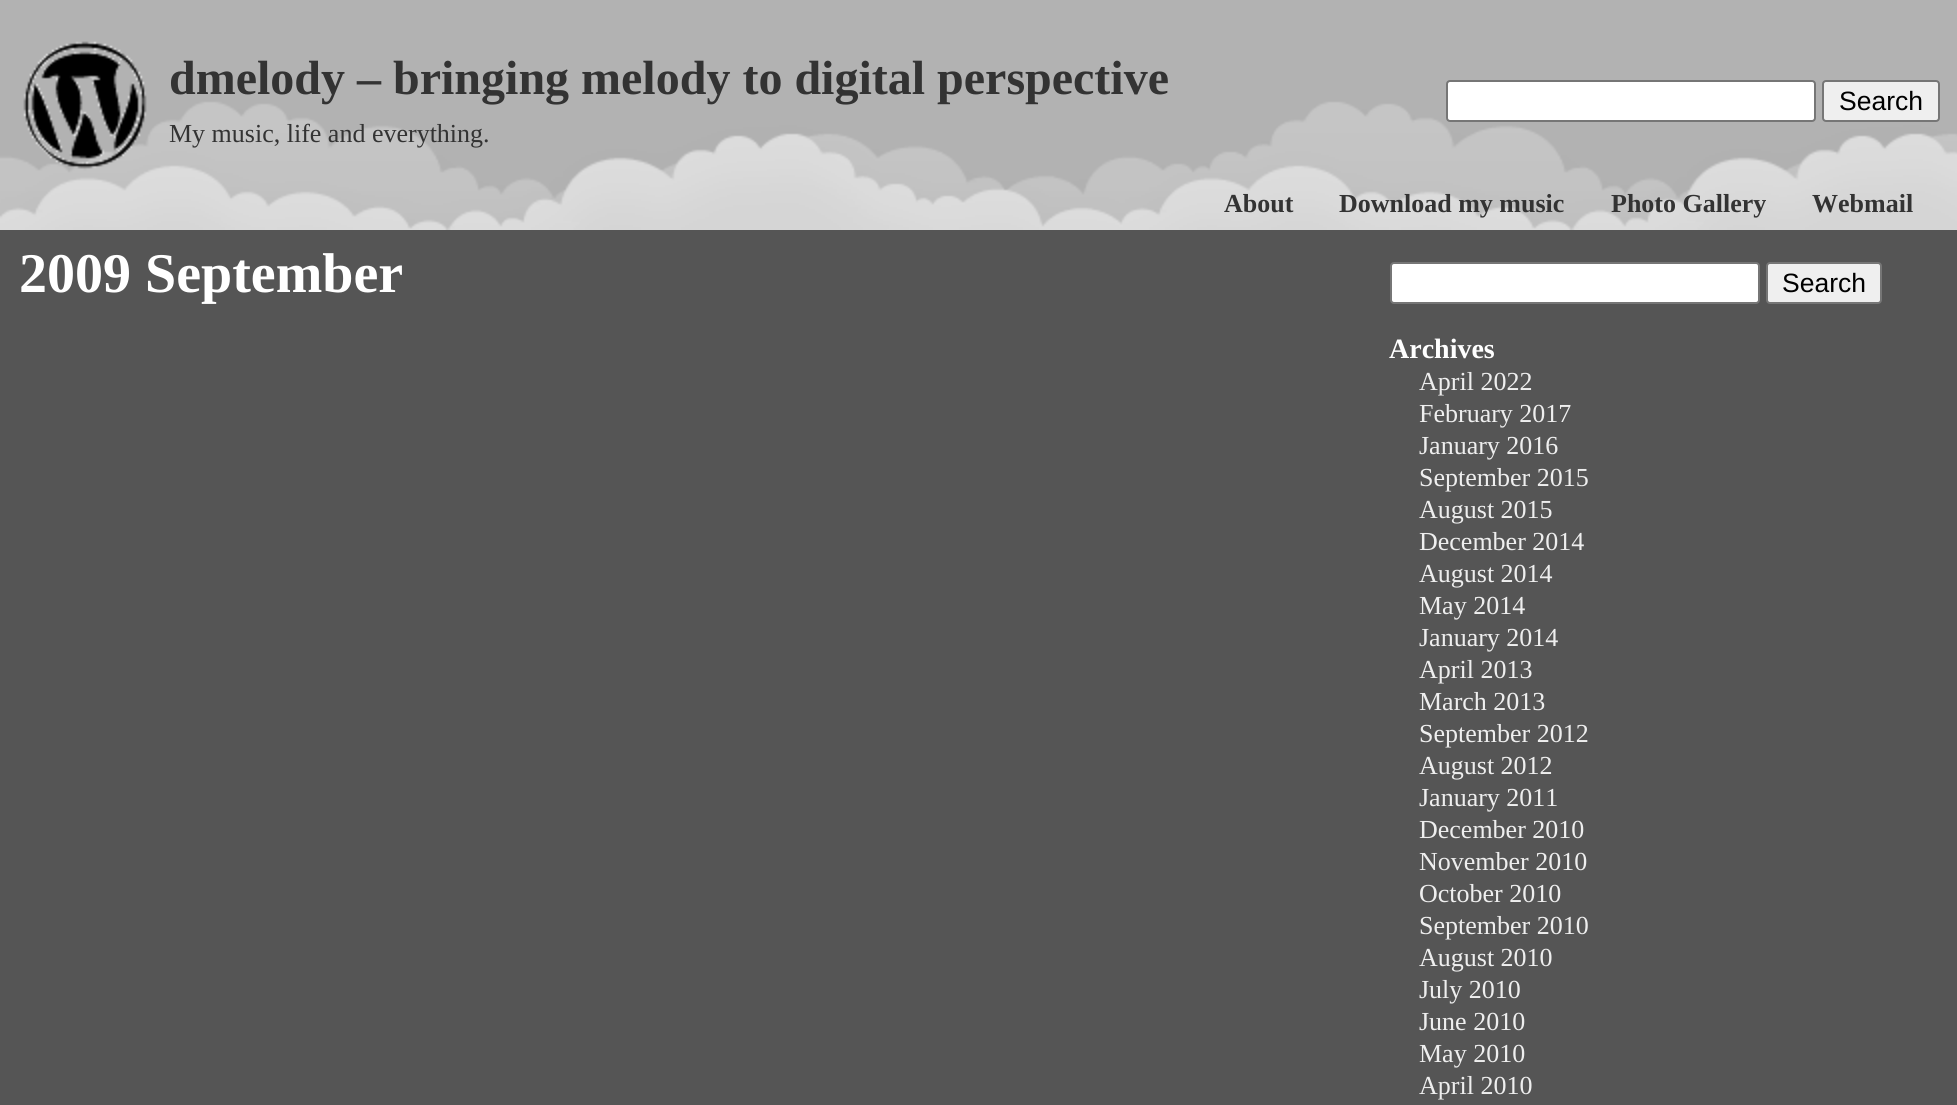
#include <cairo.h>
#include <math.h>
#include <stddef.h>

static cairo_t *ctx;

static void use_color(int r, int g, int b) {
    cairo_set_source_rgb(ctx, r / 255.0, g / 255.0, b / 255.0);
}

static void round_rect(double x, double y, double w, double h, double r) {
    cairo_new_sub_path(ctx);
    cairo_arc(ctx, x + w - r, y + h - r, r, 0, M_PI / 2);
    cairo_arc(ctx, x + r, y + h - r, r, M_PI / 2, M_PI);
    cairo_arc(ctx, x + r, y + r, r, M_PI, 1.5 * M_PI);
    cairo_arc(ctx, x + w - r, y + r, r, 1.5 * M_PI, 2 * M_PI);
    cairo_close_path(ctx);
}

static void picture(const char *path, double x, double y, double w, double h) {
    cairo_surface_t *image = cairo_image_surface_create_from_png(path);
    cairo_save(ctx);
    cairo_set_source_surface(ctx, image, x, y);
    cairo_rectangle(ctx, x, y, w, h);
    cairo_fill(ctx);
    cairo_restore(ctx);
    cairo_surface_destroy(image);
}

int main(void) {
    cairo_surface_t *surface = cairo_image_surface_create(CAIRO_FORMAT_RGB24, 1957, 1105);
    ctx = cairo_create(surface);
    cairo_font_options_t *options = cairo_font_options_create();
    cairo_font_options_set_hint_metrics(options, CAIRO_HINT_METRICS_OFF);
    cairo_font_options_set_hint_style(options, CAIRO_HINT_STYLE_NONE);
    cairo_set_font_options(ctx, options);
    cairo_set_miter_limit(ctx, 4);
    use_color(85, 85, 85);
    cairo_paint(ctx);
    picture("img1.png", 0, 0, 1957, 230);
    picture("img2.png", 23, 41, 124, 128);
    cairo_select_font_face(ctx, "Liberation Serif", CAIRO_FONT_SLANT_NORMAL, CAIRO_FONT_WEIGHT_BOLD);
    cairo_set_font_size(ctx, 48);
    use_color(51, 51, 51);
    cairo_move_to(ctx, 169, 94);
    cairo_show_text(ctx, "dmelody – bringing melody to digital perspective");
    cairo_select_font_face(ctx, "Liberation Serif", CAIRO_FONT_SLANT_NORMAL, CAIRO_FONT_WEIGHT_NORMAL);
    cairo_set_font_size(ctx, 26);
    cairo_move_to(ctx, 169, 142);
    cairo_show_text(ctx, "My music, life and everything.");
    use_color(255, 255, 255);
    round_rect(1447, 81, 368, 40, 3);
    cairo_fill_preserve(ctx);
    use_color(118, 118, 118);
    cairo_stroke(ctx);
    use_color(239, 239, 239);
    round_rect(1823, 81, 116, 40, 3);
    cairo_fill_preserve(ctx);
    use_color(118, 118, 118);
    cairo_stroke(ctx);
    cairo_select_font_face(ctx, "Liberation Sans", CAIRO_FONT_SLANT_NORMAL, CAIRO_FONT_WEIGHT_NORMAL);
    cairo_set_font_size(ctx, 26.5);
    use_color(0, 0, 0);
    cairo_move_to(ctx, 1839, 110);
    cairo_show_text(ctx, "Search");
    cairo_select_font_face(ctx, "Liberation Serif", CAIRO_FONT_SLANT_NORMAL, CAIRO_FONT_WEIGHT_BOLD);
    cairo_set_font_size(ctx, 26);
    use_color(51, 51, 51);
    cairo_move_to(ctx, 1224, 212);
    cairo_show_text(ctx, "About");
    cairo_move_to(ctx, 1339, 212);
    cairo_show_text(ctx, "Download my music");
    cairo_move_to(ctx, 1611, 212);
    cairo_show_text(ctx, "Photo Gallery");
    cairo_move_to(ctx, 1812, 212);
    cairo_show_text(ctx, "Webmail");
    cairo_set_font_size(ctx, 56);
    use_color(255, 255, 255);
    cairo_move_to(ctx, 19, 292);
    cairo_show_text(ctx, "2009 September");
    round_rect(1391, 263, 368, 40, 3);
    cairo_fill_preserve(ctx);
    use_color(118, 118, 118);
    cairo_stroke(ctx);
    use_color(239, 239, 239);
    round_rect(1767, 263, 114, 40, 3);
    cairo_fill_preserve(ctx);
    use_color(118, 118, 118);
    cairo_stroke(ctx);
    cairo_select_font_face(ctx, "Liberation Sans", CAIRO_FONT_SLANT_NORMAL, CAIRO_FONT_WEIGHT_NORMAL);
    cairo_set_font_size(ctx, 26.5);
    use_color(0, 0, 0);
    cairo_move_to(ctx, 1782, 292);
    cairo_show_text(ctx, "Search");
    cairo_select_font_face(ctx, "Liberation Serif", CAIRO_FONT_SLANT_NORMAL, CAIRO_FONT_WEIGHT_BOLD);
    cairo_set_font_size(ctx, 28);
    use_color(255, 255, 255);
    cairo_move_to(ctx, 1389, 358);
    cairo_show_text(ctx, "Archives");
    cairo_select_font_face(ctx, "Liberation Serif", CAIRO_FONT_SLANT_NORMAL, CAIRO_FONT_WEIGHT_NORMAL);
    cairo_set_font_size(ctx, 26);
    use_color(238, 238, 238);
    cairo_move_to(ctx, 1419, 390);
    cairo_show_text(ctx, "April 2022");
    cairo_move_to(ctx, 1419, 422);
    cairo_show_text(ctx, "February 2017");
    cairo_move_to(ctx, 1419, 454);
    cairo_show_text(ctx, "January 2016");
    cairo_move_to(ctx, 1419, 486);
    cairo_show_text(ctx, "September 2015");
    cairo_move_to(ctx, 1419, 518);
    cairo_show_text(ctx, "August 2015");
    cairo_move_to(ctx, 1419, 550);
    cairo_show_text(ctx, "December 2014");
    cairo_move_to(ctx, 1419, 582);
    cairo_show_text(ctx, "August 2014");
    cairo_move_to(ctx, 1419, 614);
    cairo_show_text(ctx, "May 2014");
    cairo_move_to(ctx, 1419, 646);
    cairo_show_text(ctx, "January 2014");
    cairo_move_to(ctx, 1419, 678);
    cairo_show_text(ctx, "April 2013");
    cairo_move_to(ctx, 1419, 710);
    cairo_show_text(ctx, "March 2013");
    cairo_move_to(ctx, 1419, 742);
    cairo_show_text(ctx, "September 2012");
    cairo_move_to(ctx, 1419, 774);
    cairo_show_text(ctx, "August 2012");
    cairo_move_to(ctx, 1419, 806);
    cairo_show_text(ctx, "January 2011");
    cairo_move_to(ctx, 1419, 838);
    cairo_show_text(ctx, "December 2010");
    cairo_move_to(ctx, 1419, 870);
    cairo_show_text(ctx, "November 2010");
    cairo_move_to(ctx, 1419, 902);
    cairo_show_text(ctx, "October 2010");
    cairo_move_to(ctx, 1419, 934);
    cairo_show_text(ctx, "September 2010");
    cairo_move_to(ctx, 1419, 966);
    cairo_show_text(ctx, "August 2010");
    cairo_move_to(ctx, 1419, 998);
    cairo_show_text(ctx, "July 2010");
    cairo_move_to(ctx, 1419, 1030);
    cairo_show_text(ctx, "June 2010");
    cairo_move_to(ctx, 1419, 1062);
    cairo_show_text(ctx, "May 2010");
    cairo_move_to(ctx, 1419, 1094);
    cairo_show_text(ctx, "April 2010");
    cairo_surface_write_to_png(surface, "result.png");
    cairo_font_options_destroy(options);
    cairo_destroy(ctx);
    cairo_surface_destroy(surface);
    return 0;
}
